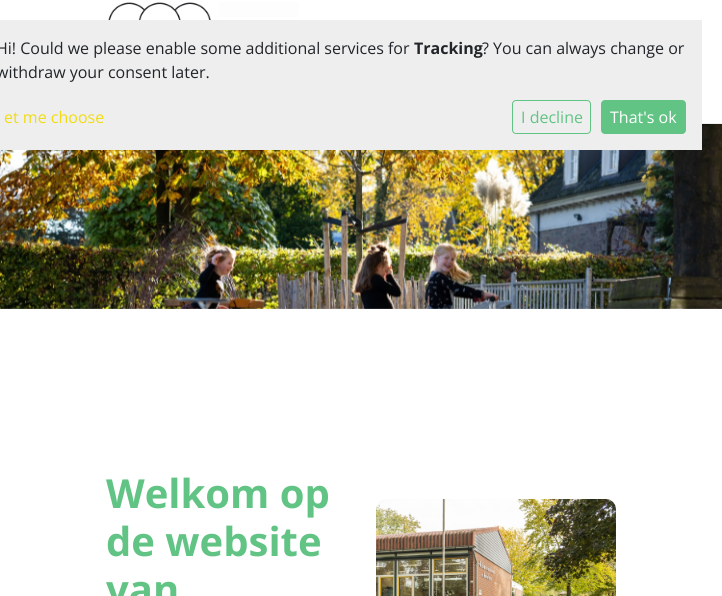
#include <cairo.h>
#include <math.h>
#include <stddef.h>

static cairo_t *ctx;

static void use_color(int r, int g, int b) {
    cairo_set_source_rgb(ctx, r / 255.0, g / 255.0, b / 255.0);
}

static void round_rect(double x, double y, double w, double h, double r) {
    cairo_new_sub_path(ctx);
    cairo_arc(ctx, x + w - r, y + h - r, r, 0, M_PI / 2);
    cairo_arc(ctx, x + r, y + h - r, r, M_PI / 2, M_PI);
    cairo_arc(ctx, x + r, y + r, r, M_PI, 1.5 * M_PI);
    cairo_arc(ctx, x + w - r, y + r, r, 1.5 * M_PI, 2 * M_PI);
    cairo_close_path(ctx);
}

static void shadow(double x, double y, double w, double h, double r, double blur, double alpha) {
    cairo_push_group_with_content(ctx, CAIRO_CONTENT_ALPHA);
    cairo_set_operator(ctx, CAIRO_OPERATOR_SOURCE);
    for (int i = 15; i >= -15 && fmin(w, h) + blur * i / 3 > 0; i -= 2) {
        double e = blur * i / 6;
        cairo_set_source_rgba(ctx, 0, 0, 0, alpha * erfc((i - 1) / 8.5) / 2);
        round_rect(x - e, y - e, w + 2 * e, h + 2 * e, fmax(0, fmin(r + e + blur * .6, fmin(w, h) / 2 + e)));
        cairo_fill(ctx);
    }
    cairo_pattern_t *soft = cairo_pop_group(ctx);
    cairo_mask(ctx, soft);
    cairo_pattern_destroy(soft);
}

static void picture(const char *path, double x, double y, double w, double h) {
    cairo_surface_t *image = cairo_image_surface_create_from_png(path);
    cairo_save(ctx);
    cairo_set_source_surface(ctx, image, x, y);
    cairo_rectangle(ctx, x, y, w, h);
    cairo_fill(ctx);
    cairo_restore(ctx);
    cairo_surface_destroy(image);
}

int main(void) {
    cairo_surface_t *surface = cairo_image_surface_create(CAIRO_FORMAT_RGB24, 722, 596);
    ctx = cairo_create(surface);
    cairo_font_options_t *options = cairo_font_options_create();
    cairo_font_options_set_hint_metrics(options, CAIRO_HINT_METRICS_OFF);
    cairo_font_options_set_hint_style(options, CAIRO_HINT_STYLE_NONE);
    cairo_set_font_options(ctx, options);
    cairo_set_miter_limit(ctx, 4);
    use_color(255, 255, 255);
    cairo_paint(ctx);
    picture("img1.png", 108, 2, 206, 18);
    picture("img2.png", 0, 124, 722, 185);
    cairo_save(ctx);
    cairo_rectangle(ctx, 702, 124, 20, 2);
    cairo_clip(ctx);
    use_color(0, 0, 0);
    shadow(0, 81, 722, 44, 0, 1.5, 0.12);
    cairo_restore(ctx);
    use_color(238, 238, 238);
    cairo_rectangle(ctx, 0, 20, 702, 130);
    cairo_fill(ctx);
    cairo_select_font_face(ctx, "Open Sans", CAIRO_FONT_SLANT_NORMAL, CAIRO_FONT_WEIGHT_NORMAL);
    cairo_set_font_size(ctx, 16);
    use_color(33, 37, 41);
    cairo_move_to(ctx, -4, 54);
    cairo_show_text(ctx, "Hi! Could we please enable some additional services for");
    cairo_select_font_face(ctx, "Open Sans", CAIRO_FONT_SLANT_NORMAL, CAIRO_FONT_WEIGHT_BOLD);
    cairo_move_to(ctx, 414, 54);
    cairo_show_text(ctx, "Tracking");
    cairo_select_font_face(ctx, "Open Sans", CAIRO_FONT_SLANT_NORMAL, CAIRO_FONT_WEIGHT_NORMAL);
    cairo_move_to(ctx, 482, 54);
    cairo_show_text(ctx, "? You can always change or");
    cairo_move_to(ctx, -4, 78);
    cairo_show_text(ctx, "withdraw your consent later.");
    use_color(242, 220, 17);
    cairo_move_to(ctx, 4, 123);
    cairo_show_text(ctx, "et me choose");
    round_rect(512.5, 100.5, 78, 33, 3.5);
    use_color(97, 196, 132);
    cairo_set_line_width(ctx, 1);
    cairo_stroke(ctx);
    cairo_move_to(ctx, 521, 123);
    cairo_show_text(ctx, "I decline");
    round_rect(601, 100, 85, 34, 4);
    cairo_fill(ctx);
    use_color(255, 255, 255);
    cairo_move_to(ctx, 610, 123);
    cairo_show_text(ctx, "That's ok");
    use_color(238, 238, 238);
    cairo_rectangle(ctx, 702, 123, 20, 1);
    cairo_fill(ctx);
    cairo_select_font_face(ctx, "Open Sans", CAIRO_FONT_SLANT_NORMAL, CAIRO_FONT_WEIGHT_BOLD);
    cairo_set_font_size(ctx, 40);
    use_color(97, 196, 132);
    cairo_move_to(ctx, 106, 508);
    cairo_show_text(ctx, "Welkom op");
    cairo_move_to(ctx, 106, 556);
    cairo_show_text(ctx, "de website");
    cairo_move_to(ctx, 106, 604);
    cairo_show_text(ctx, "van");
    picture("img3.png", 376, 499, 240, 97);
    cairo_surface_write_to_png(surface, "result.png");
    cairo_font_options_destroy(options);
    cairo_destroy(ctx);
    cairo_surface_destroy(surface);
    return 0;
}
